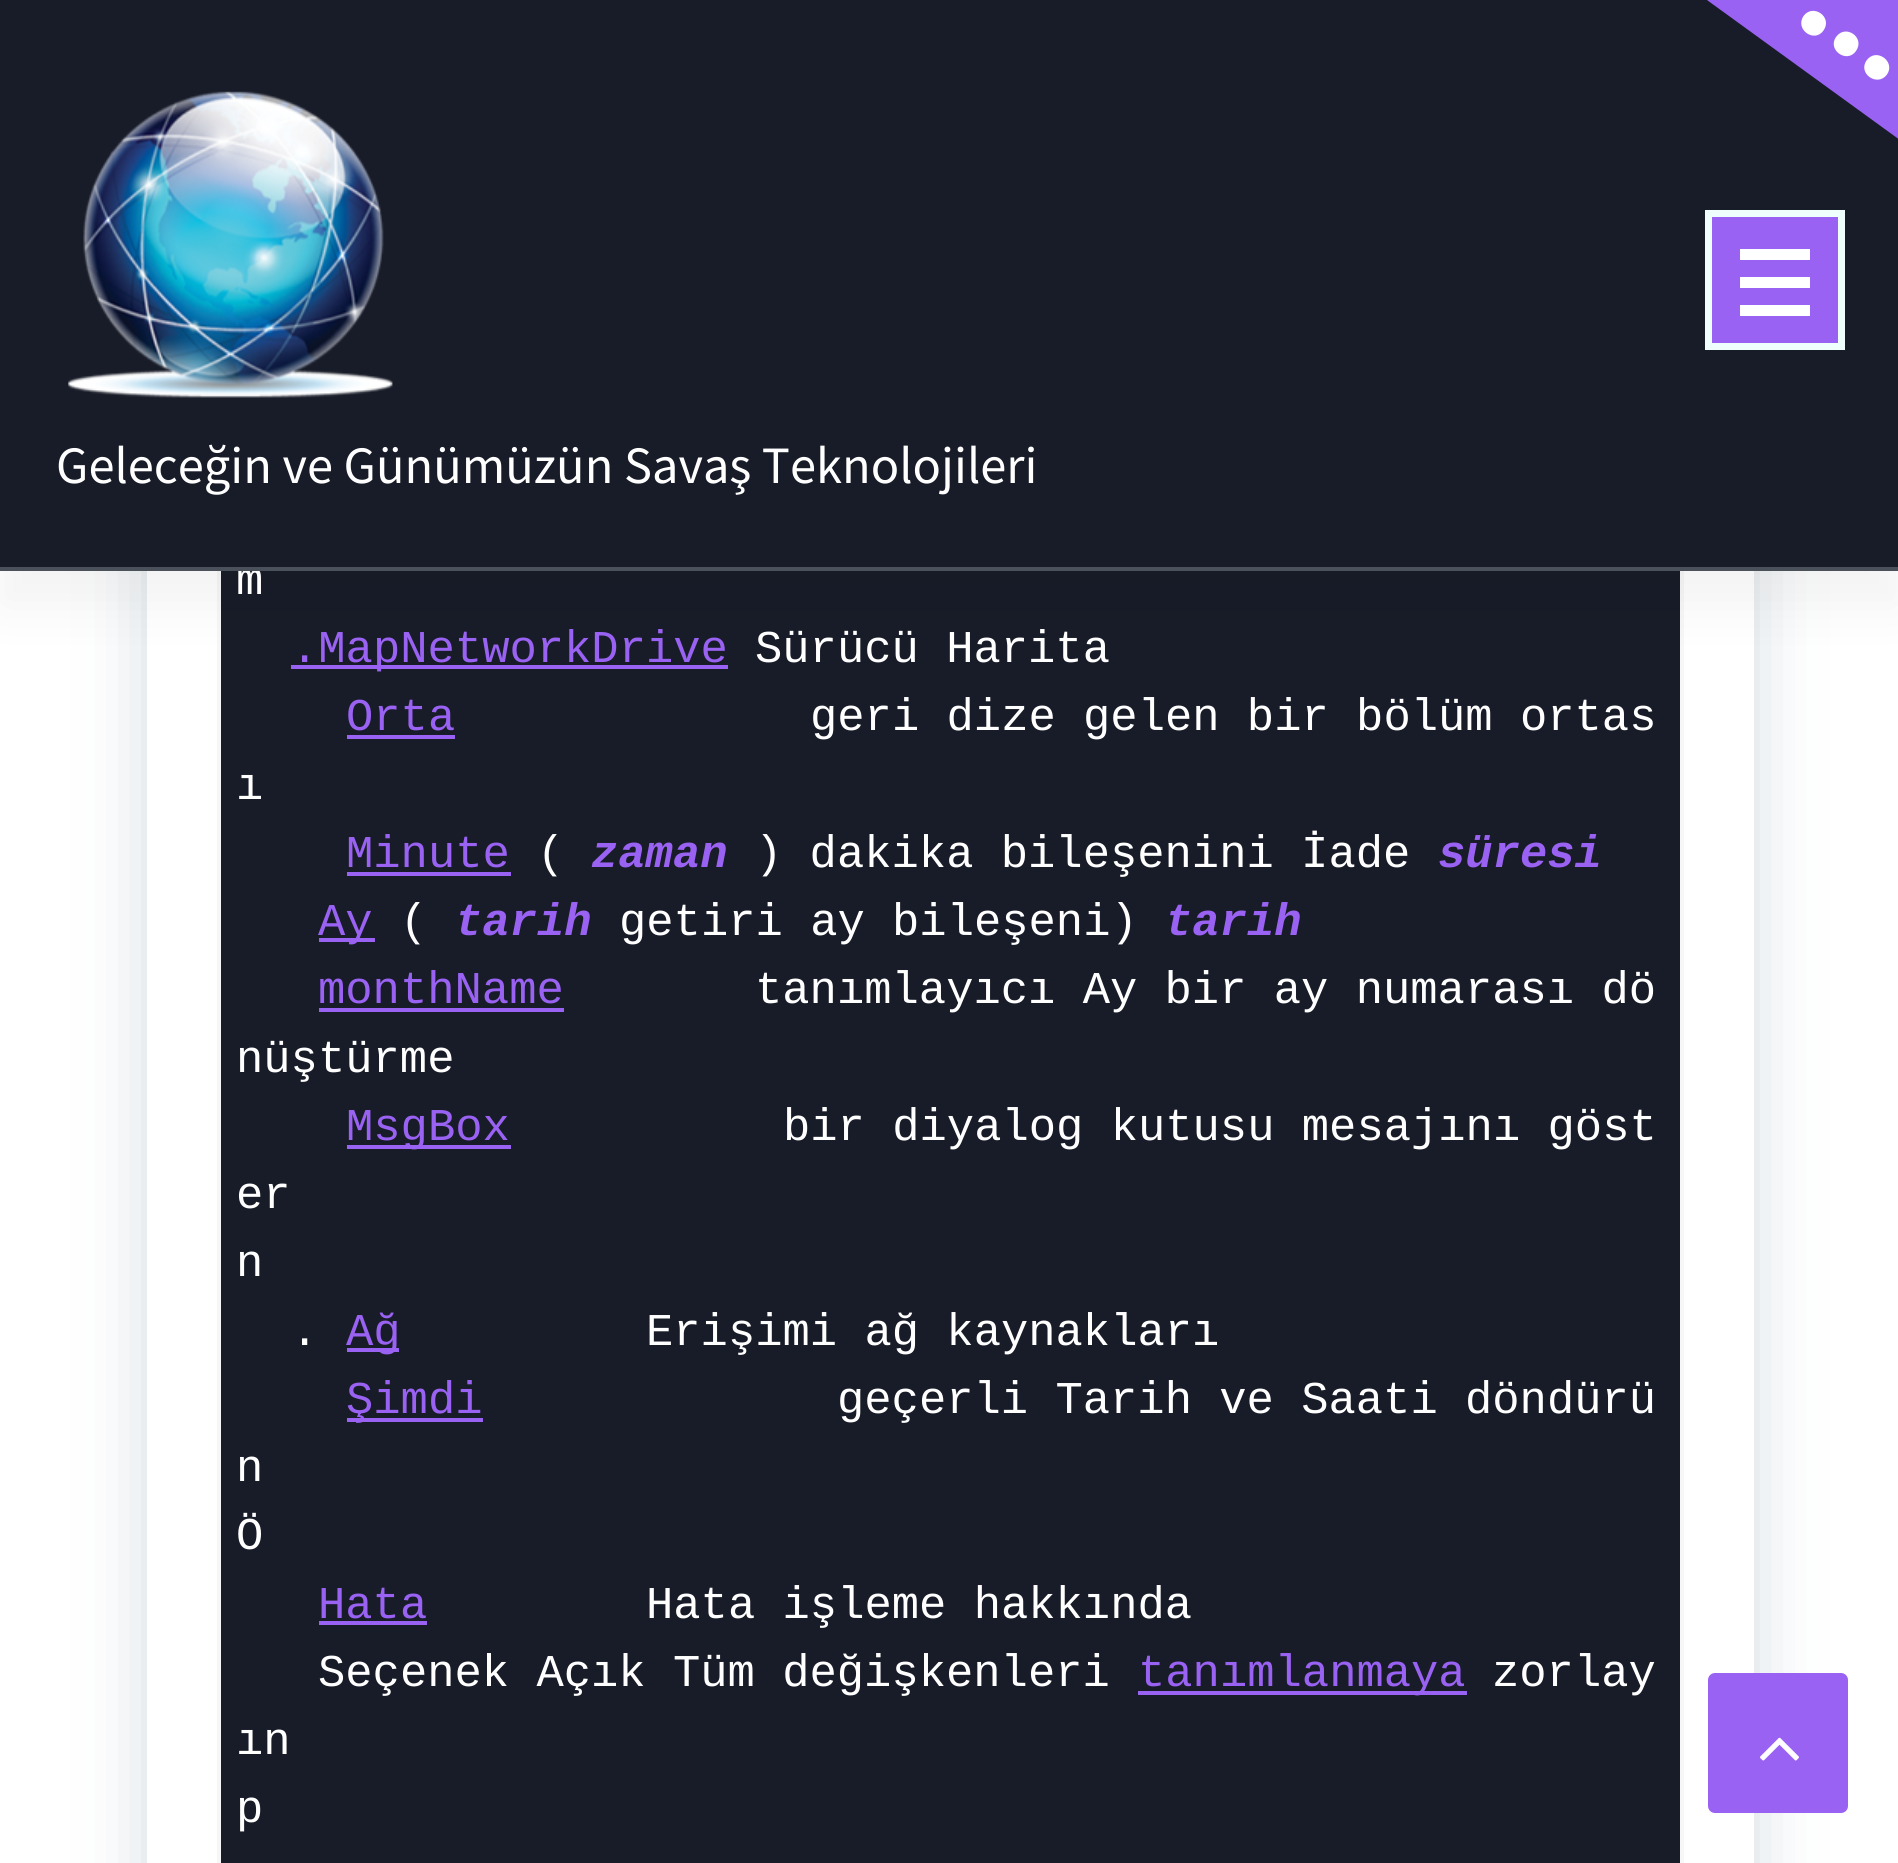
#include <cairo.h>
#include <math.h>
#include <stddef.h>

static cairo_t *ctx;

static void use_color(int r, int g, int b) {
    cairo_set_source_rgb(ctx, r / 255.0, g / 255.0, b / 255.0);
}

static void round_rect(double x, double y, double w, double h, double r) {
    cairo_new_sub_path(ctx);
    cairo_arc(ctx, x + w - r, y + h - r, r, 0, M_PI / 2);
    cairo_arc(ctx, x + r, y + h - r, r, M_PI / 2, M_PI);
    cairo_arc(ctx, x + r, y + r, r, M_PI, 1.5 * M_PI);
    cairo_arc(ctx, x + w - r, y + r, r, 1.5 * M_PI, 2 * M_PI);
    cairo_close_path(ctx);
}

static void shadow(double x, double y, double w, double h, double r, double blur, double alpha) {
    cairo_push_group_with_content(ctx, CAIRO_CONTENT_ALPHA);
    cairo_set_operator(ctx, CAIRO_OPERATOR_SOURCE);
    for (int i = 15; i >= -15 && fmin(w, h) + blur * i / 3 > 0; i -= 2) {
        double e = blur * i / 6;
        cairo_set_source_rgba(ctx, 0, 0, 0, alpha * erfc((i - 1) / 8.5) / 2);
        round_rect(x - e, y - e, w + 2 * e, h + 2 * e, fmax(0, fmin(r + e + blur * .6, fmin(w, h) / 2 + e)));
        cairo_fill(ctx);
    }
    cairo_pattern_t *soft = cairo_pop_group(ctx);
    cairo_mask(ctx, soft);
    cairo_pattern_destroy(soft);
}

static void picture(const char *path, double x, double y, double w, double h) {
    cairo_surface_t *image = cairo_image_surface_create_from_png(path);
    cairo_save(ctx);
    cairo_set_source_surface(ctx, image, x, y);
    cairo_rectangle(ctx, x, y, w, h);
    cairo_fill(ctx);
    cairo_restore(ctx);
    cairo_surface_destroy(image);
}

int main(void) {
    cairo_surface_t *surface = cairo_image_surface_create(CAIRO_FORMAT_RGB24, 1898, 1863);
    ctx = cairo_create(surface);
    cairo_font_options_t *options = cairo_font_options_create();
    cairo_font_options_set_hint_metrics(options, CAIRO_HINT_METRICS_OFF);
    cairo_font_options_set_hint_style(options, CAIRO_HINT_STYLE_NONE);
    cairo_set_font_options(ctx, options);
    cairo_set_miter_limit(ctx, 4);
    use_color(255, 255, 255);
    cairo_paint(ctx);
    use_color(33, 68, 98);
    shadow(147, -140, 1607, 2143, 35, 35, 0.19);
    use_color(255, 255, 255);
    cairo_rectangle(ctx, 147, 571, 1607, 1292);
    cairo_fill(ctx);
    use_color(24, 28, 40);
    cairo_rectangle(ctx, 221, 571, 1459, 1292);
    cairo_fill(ctx);
    cairo_rectangle(ctx, 219, -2, 1463, 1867);
    use_color(247, 247, 247);
    cairo_set_line_width(ctx, 4);
    cairo_stroke(ctx);
    use_color(154, 98, 243);
    cairo_rectangle(ctx, 291, 665, 437, 4);
    cairo_fill(ctx);
    use_color(0, 0, 0);
    shadow(0, 32, 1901, 574, 0, 26, 0.05);
    use_color(24, 28, 40);
    cairo_rectangle(ctx, 0, 0, 1898, 567);
    cairo_fill(ctx);
    cairo_select_font_face(ctx, "Liberation Mono", CAIRO_FONT_SLANT_NORMAL, CAIRO_FONT_WEIGHT_NORMAL);
    cairo_set_font_size(ctx, 45.5);
    use_color(255, 255, 255);
    cairo_move_to(ctx, 236, 594);
    cairo_show_text(ctx, "m");
    use_color(74, 81, 91);
    cairo_rectangle(ctx, 0, 567, 1898, 4);
    cairo_fill(ctx);
    use_color(154, 98, 243);
    cairo_new_path(ctx);
    cairo_move_to(ctx, 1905, -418);
    cairo_line_to(ctx, 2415, -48);
    cairo_line_to(ctx, 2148, 320);
    cairo_line_to(ctx, 1638, -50);
    cairo_close_path(ctx);
    cairo_fill(ctx);
    use_color(255, 255, 255);
    cairo_new_path(ctx);
    cairo_move_to(ctx, 1836, 37);
    cairo_curve_to(ctx, 1845.5, 23.5, 1865.5, 37.5, 1856, 51);
    cairo_curve_to(ctx, 1847, 64, 1827, 50, 1836, 37);
    cairo_close_path(ctx);
    cairo_move_to(ctx, 1803.5, 16);
    cairo_curve_to(ctx, 1813, 3, 1833, 17, 1823.5, 30.5);
    cairo_curve_to(ctx, 1814.5, 43.5, 1794.5, 29.5, 1803.5, 16);
    cairo_close_path(ctx);
    cairo_fill(ctx);
    cairo_new_path(ctx);
    cairo_move_to(ctx, 1866.5, 60.5);
    cairo_curve_to(ctx, 1876, 47, 1896, 61.5, 1887, 74.5);
    cairo_curve_to(ctx, 1877.5, 87.5, 1857.5, 73.5, 1866.5, 60.5);
    cairo_close_path(ctx);
    cairo_fill(ctx);
    use_color(154, 98, 243);
    cairo_rectangle(ctx, 1708.5, 213.5, 133, 133);
    cairo_fill_preserve(ctx);
    use_color(239, 255, 252);
    cairo_set_line_width(ctx, 7);
    cairo_stroke(ctx);
    use_color(255, 255, 255);
    cairo_rectangle(ctx, 1740, 249, 70, 11);
    cairo_fill(ctx);
    cairo_rectangle(ctx, 1740, 277, 70, 11);
    cairo_fill(ctx);
    cairo_rectangle(ctx, 1740, 305, 70, 11);
    cairo_fill(ctx);
    picture("img1.png", 68, 91, 325, 307);
    cairo_select_font_face(ctx, "Source Sans Pro", CAIRO_FONT_SLANT_NORMAL, CAIRO_FONT_WEIGHT_NORMAL);
    cairo_set_font_size(ctx, 52.5);
    cairo_move_to(ctx, 56, 483);
    cairo_show_text(ctx, "Geleceğin ve Günümüzün Savaş Teknolojileri");
    cairo_select_font_face(ctx, "Liberation Mono", CAIRO_FONT_SLANT_NORMAL, CAIRO_FONT_WEIGHT_NORMAL);
    cairo_set_font_size(ctx, 45.5);
    use_color(154, 98, 243);
    cairo_move_to(ctx, 291, 662);
    cairo_show_text(ctx, ".MapNetworkDrive");
    use_color(255, 255, 255);
    cairo_move_to(ctx, 755, 662);
    cairo_show_text(ctx, "Sürücü Harita");
    use_color(154, 98, 243);
    cairo_move_to(ctx, 346, 730);
    cairo_show_text(ctx, "Orta");
    cairo_rectangle(ctx, 347, 735, 108, 4);
    cairo_fill(ctx);
    use_color(255, 255, 255);
    cairo_move_to(ctx, 810, 730);
    cairo_show_text(ctx, "geri dize gelen bir bölüm ortas");
    cairo_move_to(ctx, 236, 799);
    cairo_show_text(ctx, "ı");
    use_color(154, 98, 243);
    cairo_move_to(ctx, 346, 867);
    cairo_show_text(ctx, "Minute");
    cairo_rectangle(ctx, 347, 872, 164, 4);
    cairo_fill(ctx);
    use_color(255, 255, 255);
    cairo_move_to(ctx, 537, 867);
    cairo_show_text(ctx, "(");
    cairo_select_font_face(ctx, "Liberation Mono", CAIRO_FONT_SLANT_ITALIC, CAIRO_FONT_WEIGHT_BOLD);
    use_color(154, 98, 243);
    cairo_move_to(ctx, 591, 867);
    cairo_show_text(ctx, "zaman");
    cairo_select_font_face(ctx, "Liberation Mono", CAIRO_FONT_SLANT_NORMAL, CAIRO_FONT_WEIGHT_NORMAL);
    use_color(255, 255, 255);
    cairo_move_to(ctx, 755, 867);
    cairo_show_text(ctx, ") dakika bileşenini İade");
    cairo_select_font_face(ctx, "Liberation Mono", CAIRO_FONT_SLANT_ITALIC, CAIRO_FONT_WEIGHT_BOLD);
    use_color(154, 98, 243);
    cairo_move_to(ctx, 1438, 867);
    cairo_show_text(ctx, "süresi");
    cairo_rectangle(ctx, 319, 938, 56, 4);
    cairo_fill(ctx);
    cairo_select_font_face(ctx, "Liberation Mono", CAIRO_FONT_SLANT_NORMAL, CAIRO_FONT_WEIGHT_NORMAL);
    cairo_move_to(ctx, 318, 935);
    cairo_show_text(ctx, "Ay");
    use_color(255, 255, 255);
    cairo_move_to(ctx, 400, 935);
    cairo_show_text(ctx, "(");
    cairo_select_font_face(ctx, "Liberation Mono", CAIRO_FONT_SLANT_ITALIC, CAIRO_FONT_WEIGHT_BOLD);
    use_color(154, 98, 243);
    cairo_move_to(ctx, 455, 935);
    cairo_show_text(ctx, "tarih");
    cairo_select_font_face(ctx, "Liberation Mono", CAIRO_FONT_SLANT_NORMAL, CAIRO_FONT_WEIGHT_NORMAL);
    use_color(255, 255, 255);
    cairo_move_to(ctx, 619, 935);
    cairo_show_text(ctx, "getiri ay bileşeni)");
    cairo_select_font_face(ctx, "Liberation Mono", CAIRO_FONT_SLANT_ITALIC, CAIRO_FONT_WEIGHT_BOLD);
    use_color(154, 98, 243);
    cairo_move_to(ctx, 1165, 935);
    cairo_show_text(ctx, "tarih");
    cairo_select_font_face(ctx, "Liberation Mono", CAIRO_FONT_SLANT_NORMAL, CAIRO_FONT_WEIGHT_NORMAL);
    cairo_move_to(ctx, 318, 1003);
    cairo_show_text(ctx, "monthName");
    cairo_rectangle(ctx, 319, 1008, 245, 4);
    cairo_fill(ctx);
    use_color(255, 255, 255);
    cairo_move_to(ctx, 755, 1003);
    cairo_show_text(ctx, "tanımlayıcı Ay bir ay numarası dö");
    cairo_move_to(ctx, 236, 1072);
    cairo_show_text(ctx, "nüştürme");
    use_color(154, 98, 243);
    cairo_rectangle(ctx, 347, 1145, 164, 4);
    cairo_fill(ctx);
    cairo_move_to(ctx, 346, 1140);
    cairo_show_text(ctx, "MsgBox");
    use_color(255, 255, 255);
    cairo_move_to(ctx, 783, 1140);
    cairo_show_text(ctx, "bir diyalog kutusu mesajını göst");
    cairo_move_to(ctx, 236, 1208);
    cairo_show_text(ctx, "er");
    cairo_move_to(ctx, 236, 1276);
    cairo_show_text(ctx, "n");
    cairo_move_to(ctx, 291, 1345);
    cairo_show_text(ctx, ".");
    use_color(154, 98, 243);
    cairo_rectangle(ctx, 347, 1348, 52, 4);
    cairo_fill(ctx);
    cairo_move_to(ctx, 346, 1345);
    cairo_show_text(ctx, "Ağ");
    use_color(255, 255, 255);
    cairo_move_to(ctx, 646, 1345);
    cairo_show_text(ctx, "Erişimi ağ kaynakları");
    use_color(154, 98, 243);
    cairo_rectangle(ctx, 347, 1418, 136, 4);
    cairo_fill(ctx);
    cairo_move_to(ctx, 346, 1413);
    cairo_show_text(ctx, "Şimdi");
    use_color(255, 255, 255);
    cairo_move_to(ctx, 837, 1413);
    cairo_show_text(ctx, "geçerli Tarih ve Saati döndürü");
    cairo_move_to(ctx, 236, 1481);
    cairo_show_text(ctx, "n");
    cairo_move_to(ctx, 236, 1549);
    cairo_show_text(ctx, "Ö");
    use_color(154, 98, 243);
    cairo_move_to(ctx, 318, 1618);
    cairo_show_text(ctx, "Hata");
    cairo_rectangle(ctx, 319, 1621, 108, 4);
    cairo_fill(ctx);
    use_color(255, 255, 255);
    cairo_move_to(ctx, 646, 1618);
    cairo_show_text(ctx, "Hata işleme hakkında");
    cairo_move_to(ctx, 318, 1686);
    cairo_show_text(ctx, "Seçenek Açık Tüm değişkenleri");
    use_color(154, 98, 243);
    cairo_rectangle(ctx, 1138, 1691, 329, 4);
    cairo_fill(ctx);
    cairo_move_to(ctx, 1138, 1686);
    cairo_show_text(ctx, "tanımlanmaya");
    use_color(255, 255, 255);
    cairo_move_to(ctx, 1492, 1686);
    cairo_show_text(ctx, "zorlay");
    cairo_move_to(ctx, 236, 1754);
    cairo_show_text(ctx, "ın");
    cairo_move_to(ctx, 236, 1822);
    cairo_show_text(ctx, "p");
    use_color(154, 98, 243);
    round_rect(1708, 1673, 140, 140, 7);
    cairo_fill(ctx);
    picture("img2.png", 1760, 1737, 39, 24);
    cairo_surface_write_to_png(surface, "result.png");
    cairo_font_options_destroy(options);
    cairo_destroy(ctx);
    cairo_surface_destroy(surface);
    return 0;
}
